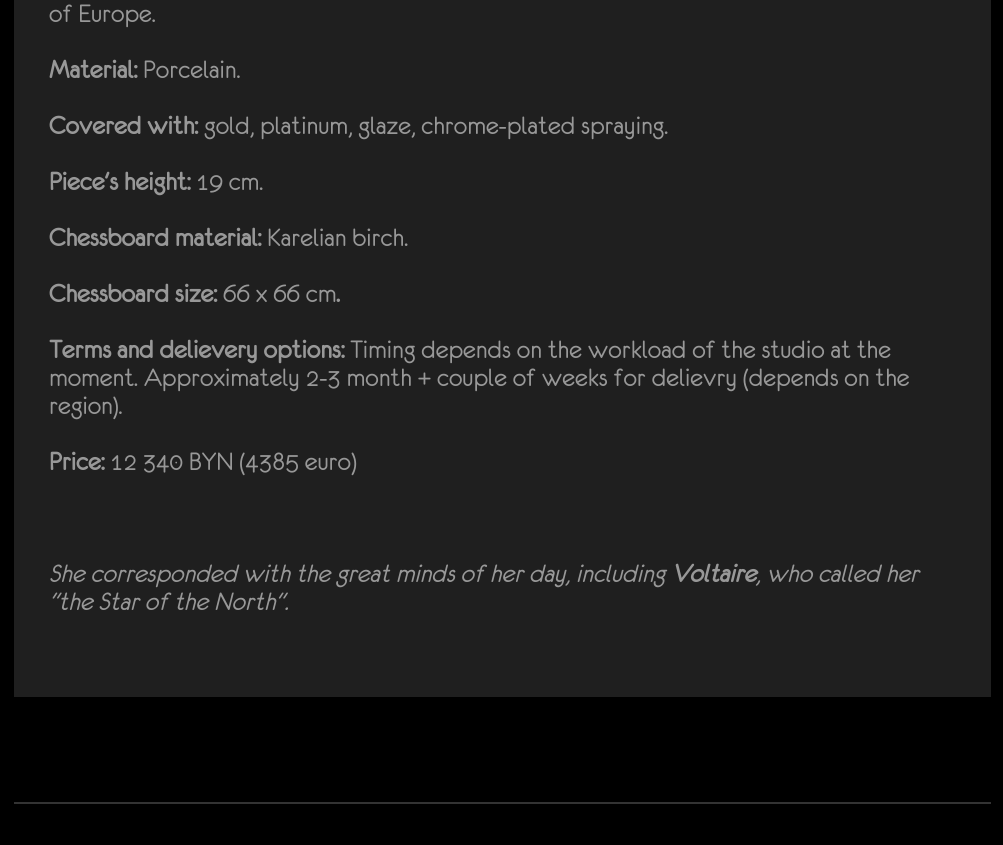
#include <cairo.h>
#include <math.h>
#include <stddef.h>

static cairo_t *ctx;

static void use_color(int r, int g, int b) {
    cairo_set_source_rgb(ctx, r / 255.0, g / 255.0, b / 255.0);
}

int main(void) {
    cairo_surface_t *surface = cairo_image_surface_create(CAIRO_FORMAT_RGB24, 1003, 845);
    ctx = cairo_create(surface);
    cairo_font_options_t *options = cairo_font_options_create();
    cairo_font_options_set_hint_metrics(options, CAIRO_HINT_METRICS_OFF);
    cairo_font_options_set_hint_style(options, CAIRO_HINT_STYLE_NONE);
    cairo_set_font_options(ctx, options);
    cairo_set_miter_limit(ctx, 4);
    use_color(0, 0, 0);
    cairo_paint(ctx);
    use_color(31, 31, 31);
    cairo_rectangle(ctx, 14, 0, 977, 697);
    cairo_fill(ctx);
    cairo_select_font_face(ctx, "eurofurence", CAIRO_FONT_SLANT_NORMAL, CAIRO_FONT_WEIGHT_NORMAL);
    cairo_set_font_size(ctx, 28);
    use_color(152, 152, 152);
    cairo_move_to(ctx, 49, 22);
    cairo_show_text(ctx, "of Europe.");
    cairo_select_font_face(ctx, "eurofurence", CAIRO_FONT_SLANT_NORMAL, CAIRO_FONT_WEIGHT_BOLD);
    cairo_move_to(ctx, 49, 78);
    cairo_show_text(ctx, "Material:");
    cairo_select_font_face(ctx, "eurofurence", CAIRO_FONT_SLANT_NORMAL, CAIRO_FONT_WEIGHT_NORMAL);
    cairo_move_to(ctx, 143, 78);
    cairo_show_text(ctx, "Porcelain.");
    cairo_select_font_face(ctx, "eurofurence", CAIRO_FONT_SLANT_NORMAL, CAIRO_FONT_WEIGHT_BOLD);
    cairo_move_to(ctx, 49, 134);
    cairo_show_text(ctx, "Covered with:");
    cairo_select_font_face(ctx, "eurofurence", CAIRO_FONT_SLANT_NORMAL, CAIRO_FONT_WEIGHT_NORMAL);
    cairo_move_to(ctx, 204, 134);
    cairo_show_text(ctx, "gold, platinum, glaze, chrome-plated spraying.");
    cairo_select_font_face(ctx, "eurofurence", CAIRO_FONT_SLANT_NORMAL, CAIRO_FONT_WEIGHT_BOLD);
    cairo_move_to(ctx, 49, 190);
    cairo_show_text(ctx, "Piece's height:");
    cairo_select_font_face(ctx, "eurofurence", CAIRO_FONT_SLANT_NORMAL, CAIRO_FONT_WEIGHT_NORMAL);
    cairo_move_to(ctx, 196, 190);
    cairo_show_text(ctx, "19 cm.");
    cairo_select_font_face(ctx, "eurofurence", CAIRO_FONT_SLANT_NORMAL, CAIRO_FONT_WEIGHT_BOLD);
    cairo_move_to(ctx, 49, 246);
    cairo_show_text(ctx, "Chessboard material:");
    cairo_select_font_face(ctx, "eurofurence", CAIRO_FONT_SLANT_NORMAL, CAIRO_FONT_WEIGHT_NORMAL);
    cairo_move_to(ctx, 267, 246);
    cairo_show_text(ctx, "Karelian birch.");
    cairo_select_font_face(ctx, "eurofurence", CAIRO_FONT_SLANT_NORMAL, CAIRO_FONT_WEIGHT_BOLD);
    cairo_move_to(ctx, 49, 302);
    cairo_show_text(ctx, "Chessboard size:");
    cairo_select_font_face(ctx, "eurofurence", CAIRO_FONT_SLANT_NORMAL, CAIRO_FONT_WEIGHT_NORMAL);
    cairo_move_to(ctx, 223, 302);
    cairo_show_text(ctx, "66 x 66 cm");
    cairo_select_font_face(ctx, "eurofurence", CAIRO_FONT_SLANT_NORMAL, CAIRO_FONT_WEIGHT_BOLD);
    cairo_move_to(ctx, 336, 302);
    cairo_show_text(ctx, ".");
    cairo_move_to(ctx, 49, 358);
    cairo_show_text(ctx, "Terms and delievery options:");
    cairo_select_font_face(ctx, "eurofurence", CAIRO_FONT_SLANT_NORMAL, CAIRO_FONT_WEIGHT_NORMAL);
    cairo_move_to(ctx, 350, 358);
    cairo_show_text(ctx, "Timing depends on the workload of the studio at the");
    cairo_move_to(ctx, 49, 386);
    cairo_show_text(ctx, "moment. Approximately 2-3 month + couple of weeks for delievry (depends on the");
    cairo_move_to(ctx, 49, 414);
    cairo_show_text(ctx, "region).");
    cairo_select_font_face(ctx, "eurofurence", CAIRO_FONT_SLANT_NORMAL, CAIRO_FONT_WEIGHT_BOLD);
    cairo_move_to(ctx, 49, 470);
    cairo_show_text(ctx, "Price:");
    cairo_select_font_face(ctx, "eurofurence", CAIRO_FONT_SLANT_NORMAL, CAIRO_FONT_WEIGHT_NORMAL);
    cairo_move_to(ctx, 110, 470);
    cairo_show_text(ctx, "12 340 BYN (4385 euro)");
    cairo_select_font_face(ctx, "eurofurence", CAIRO_FONT_SLANT_ITALIC, CAIRO_FONT_WEIGHT_NORMAL);
    cairo_move_to(ctx, 49, 582);
    cairo_show_text(ctx, "She corresponded with the great minds of her day, including");
    cairo_select_font_face(ctx, "eurofurence", CAIRO_FONT_SLANT_ITALIC, CAIRO_FONT_WEIGHT_BOLD);
    cairo_move_to(ctx, 671, 582);
    cairo_show_text(ctx, "Voltaire");
    cairo_select_font_face(ctx, "eurofurence", CAIRO_FONT_SLANT_ITALIC, CAIRO_FONT_WEIGHT_NORMAL);
    cairo_move_to(ctx, 756, 582);
    cairo_show_text(ctx, ", who called her");
    cairo_move_to(ctx, 49, 610);
    cairo_show_text(ctx, "\"the Star of the North\".");
    use_color(51, 51, 51);
    cairo_rectangle(ctx, 14, 802, 977, 2);
    cairo_fill(ctx);
    cairo_surface_write_to_png(surface, "result.png");
    cairo_font_options_destroy(options);
    cairo_destroy(ctx);
    cairo_surface_destroy(surface);
    return 0;
}
